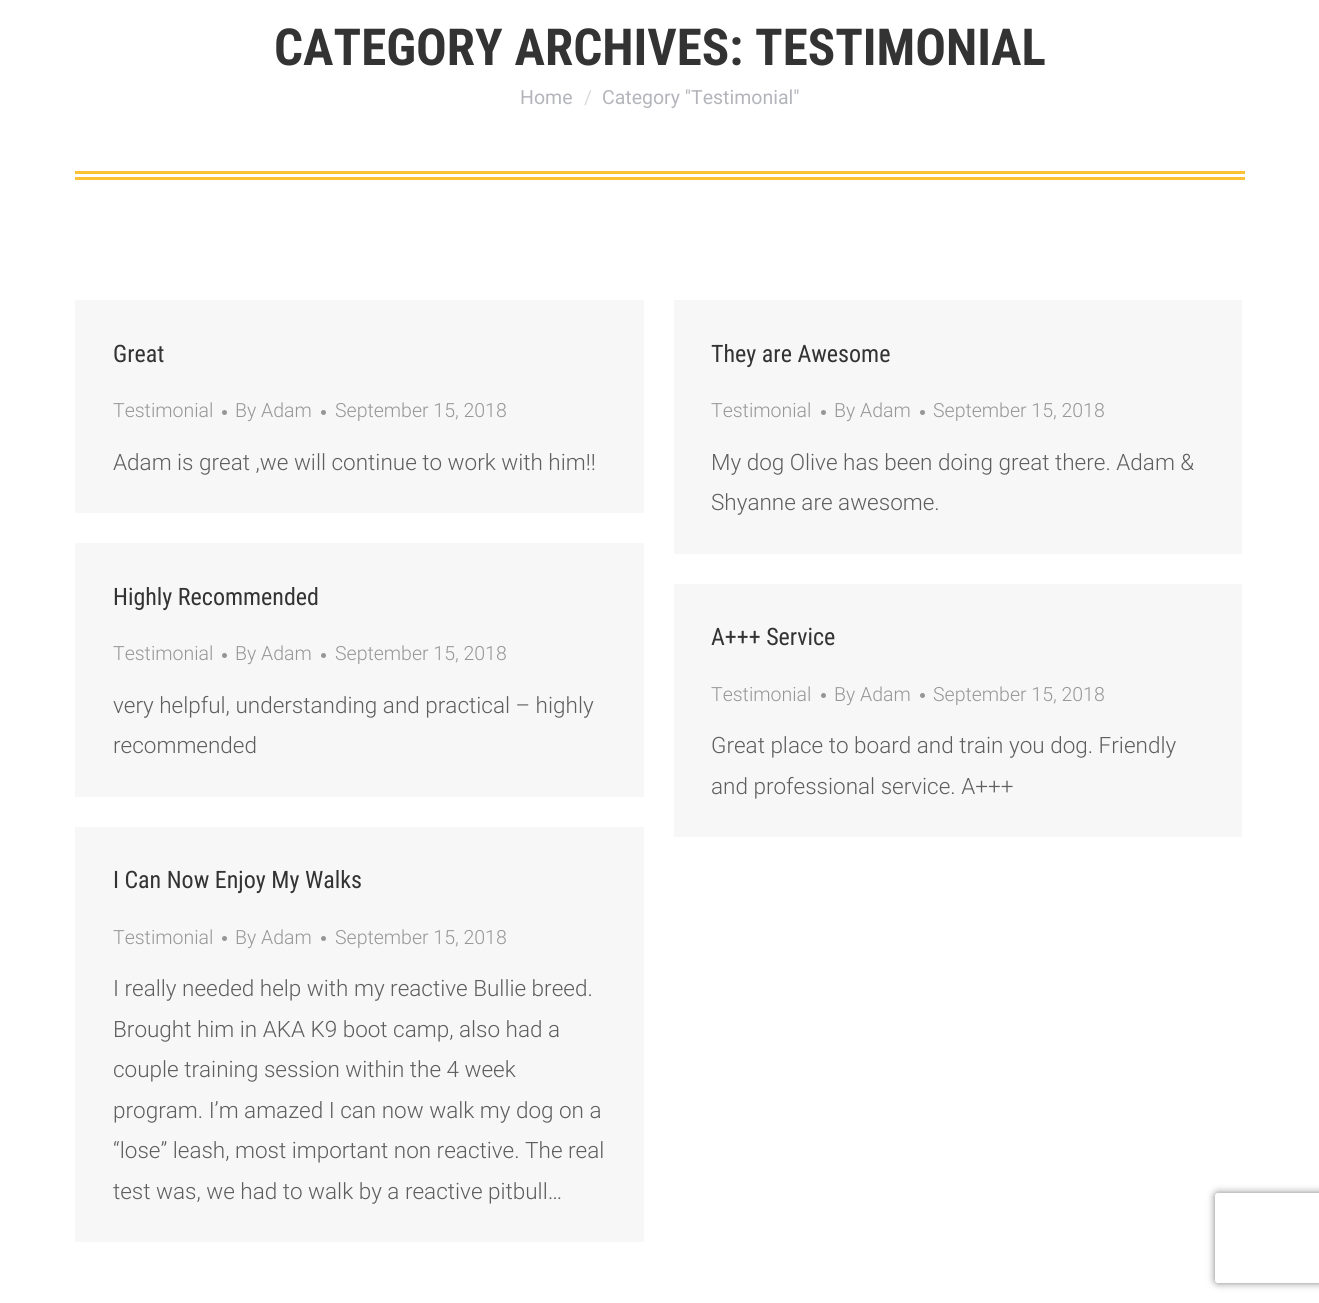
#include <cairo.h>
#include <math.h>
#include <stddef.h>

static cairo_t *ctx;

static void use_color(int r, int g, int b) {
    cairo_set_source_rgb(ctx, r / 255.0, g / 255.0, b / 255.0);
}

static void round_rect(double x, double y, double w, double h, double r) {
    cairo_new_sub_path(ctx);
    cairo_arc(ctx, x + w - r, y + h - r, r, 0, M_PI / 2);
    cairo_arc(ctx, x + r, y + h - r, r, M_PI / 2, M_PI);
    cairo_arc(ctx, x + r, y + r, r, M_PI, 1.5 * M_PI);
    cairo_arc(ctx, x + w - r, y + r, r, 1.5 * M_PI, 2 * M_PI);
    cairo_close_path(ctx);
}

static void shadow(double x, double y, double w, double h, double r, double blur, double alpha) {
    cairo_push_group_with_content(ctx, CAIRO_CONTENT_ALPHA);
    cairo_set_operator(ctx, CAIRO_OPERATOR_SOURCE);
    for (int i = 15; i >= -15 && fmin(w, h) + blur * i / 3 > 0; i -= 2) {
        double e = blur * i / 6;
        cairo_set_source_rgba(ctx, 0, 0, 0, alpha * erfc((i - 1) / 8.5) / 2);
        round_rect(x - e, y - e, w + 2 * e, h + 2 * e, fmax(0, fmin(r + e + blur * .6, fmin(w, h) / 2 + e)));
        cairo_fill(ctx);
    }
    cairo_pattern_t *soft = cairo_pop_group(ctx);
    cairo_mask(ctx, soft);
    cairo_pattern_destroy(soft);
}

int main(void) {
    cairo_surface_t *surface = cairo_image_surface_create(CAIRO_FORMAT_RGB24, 1319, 1303);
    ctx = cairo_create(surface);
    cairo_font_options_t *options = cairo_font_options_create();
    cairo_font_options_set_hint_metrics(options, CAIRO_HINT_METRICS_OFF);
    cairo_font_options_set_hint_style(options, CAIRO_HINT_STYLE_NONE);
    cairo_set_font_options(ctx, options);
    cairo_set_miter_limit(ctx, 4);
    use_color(255, 255, 255);
    cairo_paint(ctx);
    cairo_select_font_face(ctx, "Roboto Condensed", CAIRO_FONT_SLANT_NORMAL, CAIRO_FONT_WEIGHT_BOLD);
    cairo_set_font_size(ctx, 51);
    use_color(51, 51, 51);
    cairo_move_to(ctx, 274, 65);
    cairo_show_text(ctx, "CATEGORY ARCHIVES: TESTIMONIAL");
    cairo_select_font_face(ctx, "Roboto", CAIRO_FONT_SLANT_NORMAL, CAIRO_FONT_WEIGHT_NORMAL);
    cairo_set_font_size(ctx, 19.5);
    use_color(180, 181, 187);
    cairo_move_to(ctx, 520, 104);
    cairo_show_text(ctx, "Home");
    use_color(218, 218, 221);
    cairo_move_to(ctx, 584, 104);
    cairo_show_text(ctx, "/");
    use_color(180, 181, 187);
    cairo_move_to(ctx, 602, 104);
    cairo_show_text(ctx, "Category \"Testimonial\"");
    use_color(253, 193, 52);
    cairo_rectangle(ctx, 75, 171, 1170, 3);
    cairo_fill(ctx);
    cairo_rectangle(ctx, 75, 177, 1170, 3);
    cairo_fill(ctx);
    use_color(247, 247, 247);
    cairo_rectangle(ctx, 75, 300, 569, 213);
    cairo_fill(ctx);
    cairo_select_font_face(ctx, "Roboto Condensed", CAIRO_FONT_SLANT_NORMAL, CAIRO_FONT_WEIGHT_NORMAL);
    cairo_set_font_size(ctx, 24);
    use_color(51, 51, 51);
    cairo_move_to(ctx, 113, 362);
    cairo_show_text(ctx, "Great");
    cairo_select_font_face(ctx, "Roboto Light", CAIRO_FONT_SLANT_NORMAL, CAIRO_FONT_WEIGHT_NORMAL);
    cairo_set_font_size(ctx, 19.5);
    use_color(150, 150, 150);
    cairo_move_to(ctx, 113, 417);
    cairo_show_text(ctx, "Testimonial");
    cairo_new_path(ctx);
    cairo_arc(ctx, 224.5, 412.5, 2.5, 0, 2 * M_PI);
    cairo_fill(ctx);
    cairo_move_to(ctx, 235, 417);
    cairo_show_text(ctx, "By Adam");
    cairo_new_path(ctx);
    cairo_arc(ctx, 323.5, 412.5, 2.5, 0, 2 * M_PI);
    cairo_fill(ctx);
    cairo_move_to(ctx, 335, 417);
    cairo_show_text(ctx, "September 15, 2018");
    cairo_set_font_size(ctx, 22.5);
    use_color(94, 94, 94);
    cairo_move_to(ctx, 113, 470);
    cairo_show_text(ctx, "Adam is great ,we will continue to work with him!!");
    use_color(247, 247, 247);
    cairo_rectangle(ctx, 674, 300, 568, 254);
    cairo_fill(ctx);
    cairo_select_font_face(ctx, "Roboto Condensed", CAIRO_FONT_SLANT_NORMAL, CAIRO_FONT_WEIGHT_NORMAL);
    cairo_set_font_size(ctx, 24);
    use_color(51, 51, 51);
    cairo_move_to(ctx, 711, 362);
    cairo_show_text(ctx, "They are Awesome");
    cairo_select_font_face(ctx, "Roboto Light", CAIRO_FONT_SLANT_NORMAL, CAIRO_FONT_WEIGHT_NORMAL);
    cairo_set_font_size(ctx, 19.5);
    use_color(150, 150, 150);
    cairo_move_to(ctx, 711, 417);
    cairo_show_text(ctx, "Testimonial");
    cairo_new_path(ctx);
    cairo_arc(ctx, 823.5, 412.5, 2.5, 0, 2 * M_PI);
    cairo_fill(ctx);
    cairo_move_to(ctx, 834, 417);
    cairo_show_text(ctx, "By Adam");
    cairo_new_path(ctx);
    cairo_arc(ctx, 922.5, 412.5, 2.5, 0, 2 * M_PI);
    cairo_fill(ctx);
    cairo_move_to(ctx, 933, 417);
    cairo_show_text(ctx, "September 15, 2018");
    cairo_set_font_size(ctx, 22.5);
    use_color(94, 94, 94);
    cairo_move_to(ctx, 711, 470);
    cairo_show_text(ctx, "My dog Olive has been doing great there. Adam &");
    cairo_move_to(ctx, 711, 510);
    cairo_show_text(ctx, "Shyanne are awesome.");
    use_color(247, 247, 247);
    cairo_rectangle(ctx, 75, 543, 569, 254);
    cairo_fill(ctx);
    cairo_select_font_face(ctx, "Roboto Condensed", CAIRO_FONT_SLANT_NORMAL, CAIRO_FONT_WEIGHT_NORMAL);
    cairo_set_font_size(ctx, 24);
    use_color(51, 51, 51);
    cairo_move_to(ctx, 113, 605);
    cairo_show_text(ctx, "Highly Recommended");
    cairo_select_font_face(ctx, "Roboto Light", CAIRO_FONT_SLANT_NORMAL, CAIRO_FONT_WEIGHT_NORMAL);
    cairo_set_font_size(ctx, 19.5);
    use_color(150, 150, 150);
    cairo_move_to(ctx, 113, 660);
    cairo_show_text(ctx, "Testimonial");
    cairo_new_path(ctx);
    cairo_arc(ctx, 224.5, 655.5, 2.5, 0, 2 * M_PI);
    cairo_fill(ctx);
    cairo_move_to(ctx, 235, 660);
    cairo_show_text(ctx, "By Adam");
    cairo_new_path(ctx);
    cairo_arc(ctx, 323.5, 655.5, 2.5, 0, 2 * M_PI);
    cairo_fill(ctx);
    cairo_move_to(ctx, 335, 660);
    cairo_show_text(ctx, "September 15, 2018");
    cairo_set_font_size(ctx, 22.5);
    use_color(94, 94, 94);
    cairo_move_to(ctx, 113, 713);
    cairo_show_text(ctx, "very helpful, understanding and practical – highly");
    cairo_move_to(ctx, 113, 753);
    cairo_show_text(ctx, "recommended");
    use_color(247, 247, 247);
    cairo_rectangle(ctx, 674, 584, 568, 253);
    cairo_fill(ctx);
    cairo_select_font_face(ctx, "Roboto Condensed", CAIRO_FONT_SLANT_NORMAL, CAIRO_FONT_WEIGHT_NORMAL);
    cairo_set_font_size(ctx, 24);
    use_color(51, 51, 51);
    cairo_move_to(ctx, 711, 645);
    cairo_show_text(ctx, "A+++ Service");
    cairo_select_font_face(ctx, "Roboto Light", CAIRO_FONT_SLANT_NORMAL, CAIRO_FONT_WEIGHT_NORMAL);
    cairo_set_font_size(ctx, 19.5);
    use_color(150, 150, 150);
    cairo_move_to(ctx, 711, 701);
    cairo_show_text(ctx, "Testimonial");
    cairo_new_path(ctx);
    cairo_arc(ctx, 823.5, 695.5, 2.5, 0, 2 * M_PI);
    cairo_fill(ctx);
    cairo_move_to(ctx, 834, 701);
    cairo_show_text(ctx, "By Adam");
    cairo_new_path(ctx);
    cairo_arc(ctx, 922.5, 695.5, 2.5, 0, 2 * M_PI);
    cairo_fill(ctx);
    cairo_move_to(ctx, 933, 701);
    cairo_show_text(ctx, "September 15, 2018");
    cairo_set_font_size(ctx, 22.5);
    use_color(94, 94, 94);
    cairo_move_to(ctx, 711, 753);
    cairo_show_text(ctx, "Great place to board and train you dog. Friendly");
    cairo_move_to(ctx, 711, 794);
    cairo_show_text(ctx, "and professional service. A+++");
    use_color(247, 247, 247);
    cairo_rectangle(ctx, 75, 827, 569, 415);
    cairo_fill(ctx);
    cairo_select_font_face(ctx, "Roboto Condensed", CAIRO_FONT_SLANT_NORMAL, CAIRO_FONT_WEIGHT_NORMAL);
    cairo_set_font_size(ctx, 24);
    use_color(51, 51, 51);
    cairo_move_to(ctx, 113, 888);
    cairo_show_text(ctx, "I Can Now Enjoy My Walks");
    cairo_select_font_face(ctx, "Roboto Light", CAIRO_FONT_SLANT_NORMAL, CAIRO_FONT_WEIGHT_NORMAL);
    cairo_set_font_size(ctx, 19.5);
    use_color(150, 150, 150);
    cairo_move_to(ctx, 113, 944);
    cairo_show_text(ctx, "Testimonial");
    cairo_new_path(ctx);
    cairo_arc(ctx, 224.5, 938.5, 2.5, 0, 2 * M_PI);
    cairo_fill(ctx);
    cairo_move_to(ctx, 235, 944);
    cairo_show_text(ctx, "By Adam");
    cairo_new_path(ctx);
    cairo_arc(ctx, 323.5, 938.5, 2.5, 0, 2 * M_PI);
    cairo_fill(ctx);
    cairo_move_to(ctx, 335, 944);
    cairo_show_text(ctx, "September 15, 2018");
    cairo_set_font_size(ctx, 22.5);
    use_color(94, 94, 94);
    cairo_move_to(ctx, 113, 996);
    cairo_show_text(ctx, "I really needed help with my reactive Bullie breed.");
    cairo_move_to(ctx, 113, 1037);
    cairo_show_text(ctx, "Brought him in AKA K9 boot camp, also had a");
    cairo_move_to(ctx, 113, 1077);
    cairo_show_text(ctx, "couple training session within the 4 week");
    cairo_move_to(ctx, 113, 1118);
    cairo_show_text(ctx, "program. I’m amazed I can now walk my dog on a");
    cairo_move_to(ctx, 113, 1158);
    cairo_show_text(ctx, "“lose” leash, most important non reactive. The real");
    cairo_move_to(ctx, 113, 1199);
    cairo_show_text(ctx, "test was, we had to walk by a reactive pitbull…");
    cairo_save(ctx);
    cairo_set_fill_rule(ctx, CAIRO_FILL_RULE_EVEN_ODD);
    cairo_new_path(ctx);
    cairo_move_to(ctx, 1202, 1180);
    cairo_line_to(ctx, 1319, 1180);
    cairo_line_to(ctx, 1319, 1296);
    cairo_line_to(ctx, 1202, 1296);
    cairo_close_path(ctx);
    cairo_move_to(ctx, 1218, 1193);
    cairo_line_to(ctx, 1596, 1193);
    cairo_curve_to(ctx, 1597.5, 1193, 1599, 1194.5, 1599, 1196);
    cairo_line_to(ctx, 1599, 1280);
    cairo_curve_to(ctx, 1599, 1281.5, 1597.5, 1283, 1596, 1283);
    cairo_line_to(ctx, 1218, 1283);
    cairo_curve_to(ctx, 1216.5, 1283, 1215, 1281.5, 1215, 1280);
    cairo_line_to(ctx, 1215, 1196);
    cairo_curve_to(ctx, 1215, 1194.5, 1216.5, 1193, 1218, 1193);
    cairo_close_path(ctx);
    cairo_clip(ctx);
    use_color(128, 128, 128);
    shadow(1215, 1193, 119, 90, 3, 4, 1);
    cairo_restore(ctx);
    cairo_surface_write_to_png(surface, "result.png");
    cairo_font_options_destroy(options);
    cairo_destroy(ctx);
    cairo_surface_destroy(surface);
    return 0;
}
